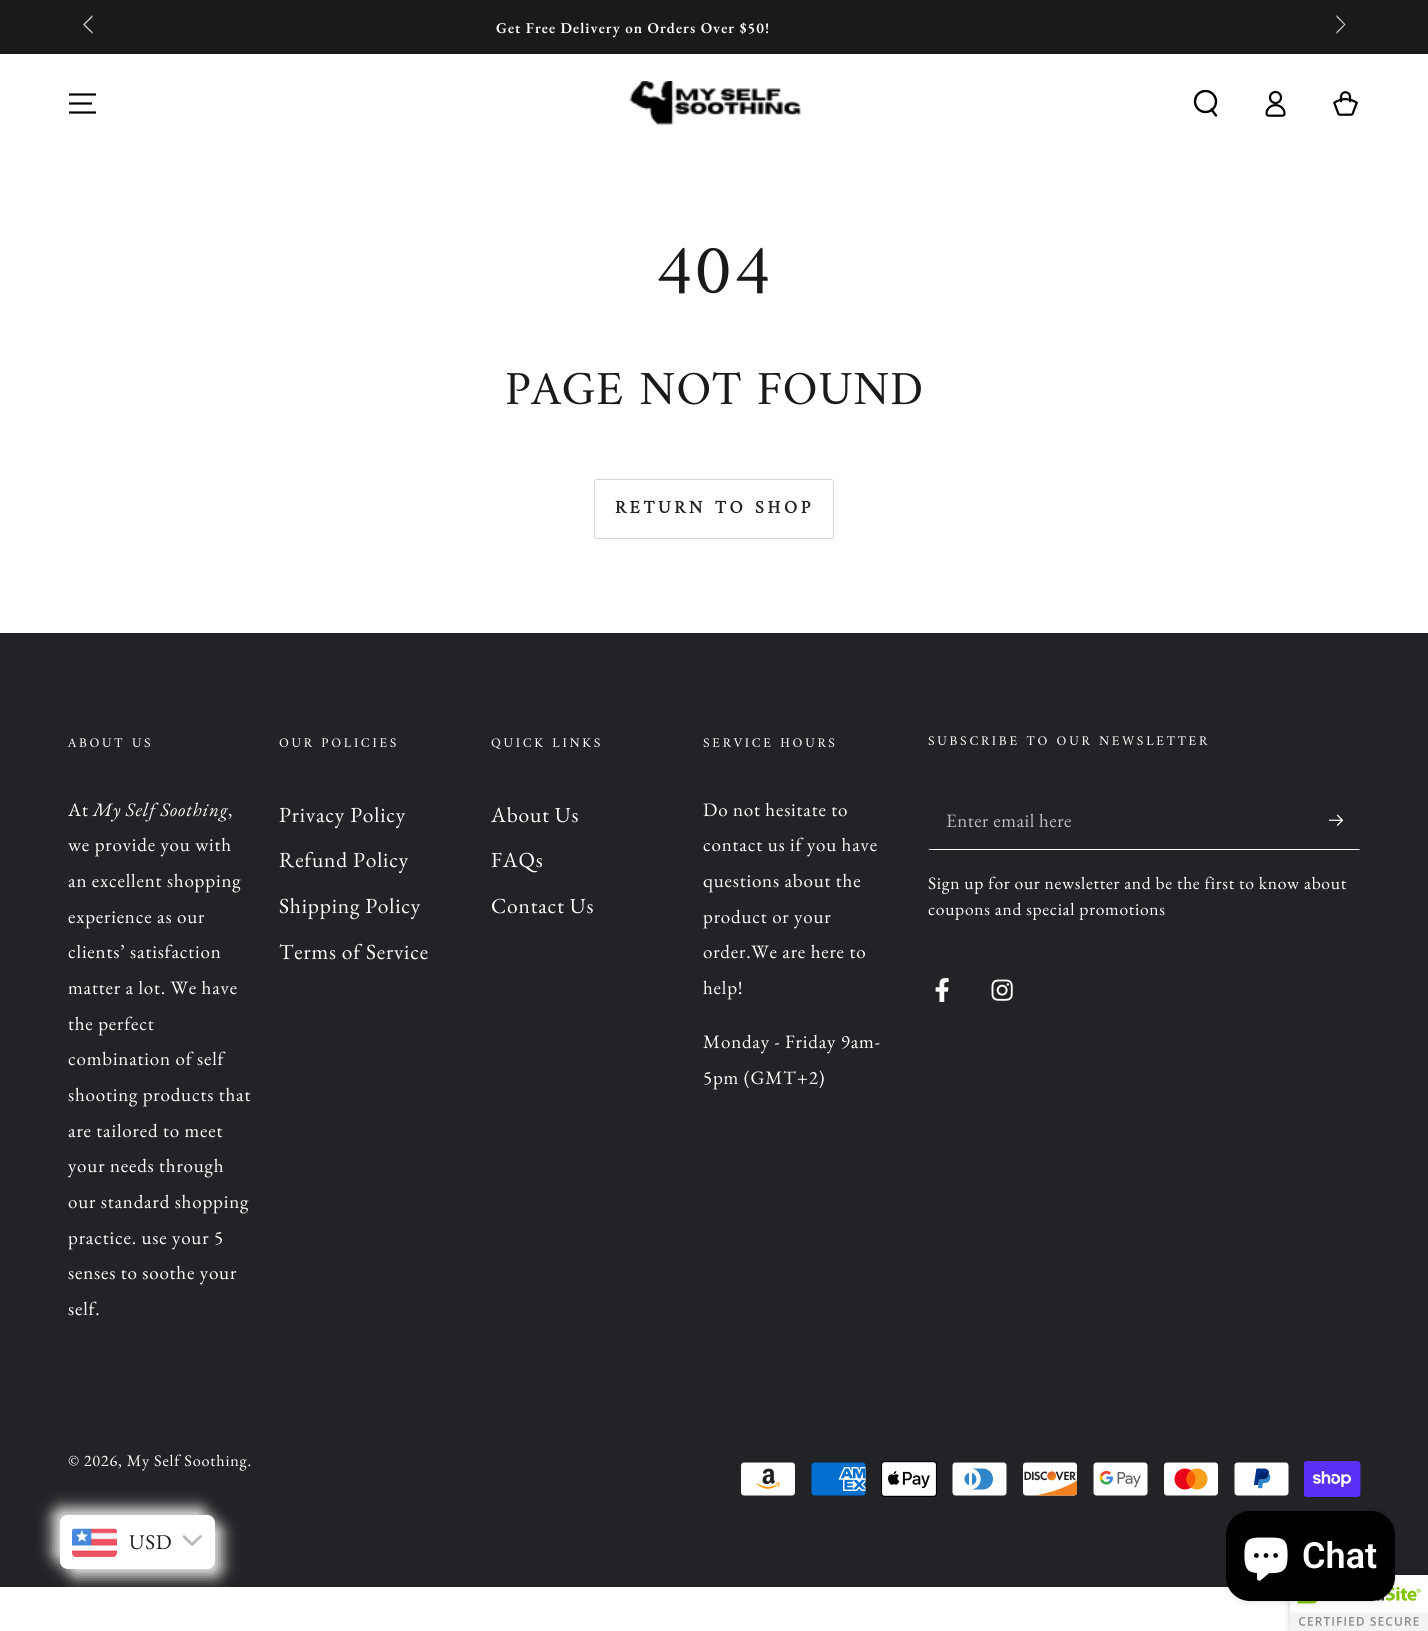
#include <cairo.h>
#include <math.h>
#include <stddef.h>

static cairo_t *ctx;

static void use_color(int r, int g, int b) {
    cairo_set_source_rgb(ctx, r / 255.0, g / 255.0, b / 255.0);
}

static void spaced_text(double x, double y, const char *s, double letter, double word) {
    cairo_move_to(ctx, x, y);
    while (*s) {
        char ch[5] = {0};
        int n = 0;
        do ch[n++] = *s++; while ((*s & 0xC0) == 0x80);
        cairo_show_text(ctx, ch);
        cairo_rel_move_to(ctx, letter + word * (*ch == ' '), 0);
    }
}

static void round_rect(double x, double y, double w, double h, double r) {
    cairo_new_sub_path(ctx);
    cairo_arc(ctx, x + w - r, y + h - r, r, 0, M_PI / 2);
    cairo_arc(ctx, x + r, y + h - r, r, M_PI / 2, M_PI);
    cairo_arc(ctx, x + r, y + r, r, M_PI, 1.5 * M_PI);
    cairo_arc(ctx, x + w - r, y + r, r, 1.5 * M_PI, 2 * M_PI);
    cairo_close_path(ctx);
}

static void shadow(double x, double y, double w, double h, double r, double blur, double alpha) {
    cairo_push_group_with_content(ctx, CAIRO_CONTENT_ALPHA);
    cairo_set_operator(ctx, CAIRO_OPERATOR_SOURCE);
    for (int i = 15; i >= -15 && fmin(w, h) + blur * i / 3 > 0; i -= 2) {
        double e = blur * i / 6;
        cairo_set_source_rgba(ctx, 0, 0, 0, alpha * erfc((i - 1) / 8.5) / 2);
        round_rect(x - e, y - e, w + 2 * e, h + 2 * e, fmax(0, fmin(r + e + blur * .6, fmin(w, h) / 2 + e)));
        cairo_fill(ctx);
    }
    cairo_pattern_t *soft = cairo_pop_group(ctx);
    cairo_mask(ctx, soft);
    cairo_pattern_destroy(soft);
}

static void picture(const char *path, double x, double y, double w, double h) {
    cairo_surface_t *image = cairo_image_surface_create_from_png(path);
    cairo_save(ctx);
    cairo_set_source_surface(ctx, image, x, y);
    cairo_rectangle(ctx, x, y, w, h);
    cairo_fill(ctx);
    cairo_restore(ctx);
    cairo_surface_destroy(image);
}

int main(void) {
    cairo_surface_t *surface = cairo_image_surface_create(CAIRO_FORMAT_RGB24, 1428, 1631);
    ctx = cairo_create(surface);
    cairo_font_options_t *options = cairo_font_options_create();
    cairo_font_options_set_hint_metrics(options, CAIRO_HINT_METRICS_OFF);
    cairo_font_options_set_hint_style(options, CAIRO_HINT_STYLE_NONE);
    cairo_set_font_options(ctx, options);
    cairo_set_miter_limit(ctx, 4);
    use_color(255, 255, 255);
    cairo_paint(ctx);
    use_color(26, 27, 24);
    cairo_rectangle(ctx, 0, 0, 1428, 54);
    cairo_fill(ctx);
    use_color(198, 198, 197);
    cairo_set_fill_rule(ctx, CAIRO_FILL_RULE_EVEN_ODD);
    cairo_new_path(ctx);
    cairo_move_to(ctx, 83, 24.5);
    cairo_line_to(ctx, 92.5, 34);
    cairo_line_to(ctx, 92.5, 32);
    cairo_line_to(ctx, 85, 24.5);
    cairo_line_to(ctx, 92.5, 17);
    cairo_line_to(ctx, 92.5, 15);
    cairo_close_path(ctx);
    cairo_fill(ctx);
    cairo_new_path(ctx);
    cairo_move_to(ctx, 1345.5, 24.5);
    cairo_line_to(ctx, 1336.5, 34);
    cairo_line_to(ctx, 1336.5, 32);
    cairo_line_to(ctx, 1344, 24.5);
    cairo_line_to(ctx, 1336.5, 17);
    cairo_line_to(ctx, 1336.5, 15);
    cairo_close_path(ctx);
    cairo_fill(ctx);
    cairo_select_font_face(ctx, "EB Garamond SemiBold", CAIRO_FONT_SLANT_NORMAL, CAIRO_FONT_WEIGHT_NORMAL);
    cairo_set_font_size(ctx, 15);
    use_color(255, 255, 255);
    spaced_text(496, 33, "Get Free Delivery on Orders Over $50!", 1.05, 0);
    cairo_new_path(ctx);
    cairo_move_to(ctx, 69, 112.5);
    cairo_line_to(ctx, 96, 112.5);
    cairo_move_to(ctx, 69, 103.5);
    cairo_line_to(ctx, 92, 103.5);
    cairo_move_to(ctx, 69, 94.5);
    cairo_line_to(ctx, 96, 94.5);
    use_color(0, 0, 0);
    cairo_set_line_width(ctx, 2.2);
    cairo_stroke(ctx);
    picture("img1.png", 629, 81, 172, 44);
    cairo_save(ctx);
    cairo_set_fill_rule(ctx, CAIRO_FILL_RULE_WINDING);
    cairo_rectangle(ctx, 1193, 90, 27, 27);
    cairo_clip(ctx);
    cairo_arc(ctx, 1205.5, 101.5, 10.5, 0, 2 * M_PI);
    cairo_set_line_width(ctx, 2.4);
    cairo_stroke(ctx);
    cairo_restore(ctx);
    cairo_new_path(ctx);
    cairo_move_to(ctx, 1211.5, 109.5);
    cairo_line_to(ctx, 1216, 115.5);
    cairo_set_line_width(ctx, 2.4);
    cairo_set_line_cap(ctx, CAIRO_LINE_CAP_ROUND);
    cairo_stroke(ctx);
    picture("img2.png", 1265, 90, 21, 27);
    picture("img3.png", 1333, 91, 25, 25);
    cairo_select_font_face(ctx, "Amiri", CAIRO_FONT_SLANT_NORMAL, CAIRO_FONT_WEIGHT_NORMAL);
    cairo_set_font_size(ctx, 72);
    use_color(26, 27, 24);
    spaced_text(655, 293, "404", 0.75, 0);
    cairo_set_font_size(ctx, 48);
    spaced_text(505, 404, "PAGE NOT FOUND", 0.75, 0);
    round_rect(594.5, 479.5, 239, 59, 2.5);
    use_color(210, 213, 217);
    cairo_set_line_width(ctx, 1);
    cairo_set_line_cap(ctx, CAIRO_LINE_CAP_BUTT);
    cairo_stroke(ctx);
    cairo_select_font_face(ctx, "Amiri", CAIRO_FONT_SLANT_NORMAL, CAIRO_FONT_WEIGHT_BOLD);
    cairo_set_font_size(ctx, 18);
    use_color(33, 35, 38);
    spaced_text(615, 513, "RETURN TO SHOP", 3.6, 0);
    cairo_rectangle(ctx, 0, 633, 1428, 954);
    cairo_fill(ctx);
    cairo_select_font_face(ctx, "Amiri", CAIRO_FONT_SLANT_NORMAL, CAIRO_FONT_WEIGHT_NORMAL);
    cairo_set_font_size(ctx, 13.5);
    use_color(255, 255, 255);
    spaced_text(68, 747, "ABOUT US", 2.7, 0);
    cairo_select_font_face(ctx, "EB Garamond", CAIRO_FONT_SLANT_NORMAL, CAIRO_FONT_WEIGHT_NORMAL);
    cairo_set_font_size(ctx, 19);
    spaced_text(68, 816, "At", 0.8, 0);
    cairo_select_font_face(ctx, "EB Garamond", CAIRO_FONT_SLANT_ITALIC, CAIRO_FONT_WEIGHT_NORMAL);
    spaced_text(93, 816, "My Self Soothing", 0.8, 0);
    cairo_select_font_face(ctx, "EB Garamond", CAIRO_FONT_SLANT_NORMAL, CAIRO_FONT_WEIGHT_NORMAL);
    spaced_text(228, 816, ",", 0.8, 0);
    spaced_text(68, 851, "we provide you with", 0.8, 0);
    spaced_text(68, 887, "an excellent shopping", 0.8, 0);
    spaced_text(68, 923, "experience as our", 0.8, 0);
    spaced_text(68, 958, "clients’ satisfaction", 0.8, 0);
    spaced_text(68, 994, "matter a lot. We have", 0.8, 0);
    spaced_text(68, 1030, "the perfect", 0.8, 0);
    spaced_text(68, 1065, "combination of self", 0.8, 0);
    spaced_text(68, 1101, "shooting products that", 0.8, 0);
    spaced_text(68, 1137, "are tailored to meet", 0.8, 0);
    spaced_text(68, 1172, "your needs through", 0.8, 0);
    spaced_text(68, 1208, "our standard shopping", 0.8, 0);
    spaced_text(68, 1244, "practice. use your 5", 0.8, 0);
    spaced_text(68, 1279, "senses to soothe your", 0.8, 0);
    spaced_text(68, 1315, "self.", 0.8, 0);
    cairo_select_font_face(ctx, "Amiri", CAIRO_FONT_SLANT_NORMAL, CAIRO_FONT_WEIGHT_NORMAL);
    cairo_set_font_size(ctx, 13.5);
    spaced_text(279, 747, "OUR POLICIES", 2.7, 0);
    cairo_select_font_face(ctx, "EB Garamond", CAIRO_FONT_SLANT_NORMAL, CAIRO_FONT_WEIGHT_NORMAL);
    cairo_set_font_size(ctx, 21.5);
    spaced_text(279, 822, "Privacy Policy", 0.8, 0);
    spaced_text(279, 867, "Refund Policy", 0.8, 0);
    spaced_text(279, 913, "Shipping Policy", 0.8, 0);
    spaced_text(279, 959, "Terms of Service", 0.8, 0);
    cairo_select_font_face(ctx, "Amiri", CAIRO_FONT_SLANT_NORMAL, CAIRO_FONT_WEIGHT_NORMAL);
    cairo_set_font_size(ctx, 13.5);
    spaced_text(491, 747, "QUICK LINKS", 2.7, 0);
    cairo_select_font_face(ctx, "EB Garamond", CAIRO_FONT_SLANT_NORMAL, CAIRO_FONT_WEIGHT_NORMAL);
    cairo_set_font_size(ctx, 21.5);
    spaced_text(491, 822, "About Us", 0.8, 0);
    spaced_text(491, 867, "FAQs", 0.8, 0);
    spaced_text(491, 913, "Contact Us", 0.8, 0);
    cairo_select_font_face(ctx, "Amiri", CAIRO_FONT_SLANT_NORMAL, CAIRO_FONT_WEIGHT_NORMAL);
    cairo_set_font_size(ctx, 13.5);
    spaced_text(703, 747, "SERVICE HOURS", 2.7, 0);
    cairo_select_font_face(ctx, "EB Garamond", CAIRO_FONT_SLANT_NORMAL, CAIRO_FONT_WEIGHT_NORMAL);
    cairo_set_font_size(ctx, 19);
    spaced_text(703, 816, "Do not hesitate to", 0.8, 0);
    spaced_text(703, 851, "contact us if you have", 0.8, 0);
    spaced_text(703, 887, "questions about the", 0.8, 0);
    spaced_text(703, 923, "product or your", 0.8, 0);
    spaced_text(703, 958, "order.We are here to", 0.8, 0);
    spaced_text(703, 994, "help!", 0.8, 0);
    spaced_text(703, 1048, "Monday - Friday 9am-", 0.8, 0);
    spaced_text(703, 1084, "5pm (GMT+2)", 0.8, 0);
    cairo_select_font_face(ctx, "Amiri", CAIRO_FONT_SLANT_NORMAL, CAIRO_FONT_WEIGHT_NORMAL);
    cairo_set_font_size(ctx, 13.5);
    spaced_text(928, 745, "SUBSCRIBE TO OUR NEWSLETTER", 2.7, 0);
    cairo_set_fill_rule(ctx, CAIRO_FILL_RULE_WINDING);
    cairo_new_path(ctx);
    cairo_move_to(ctx, 1360, 850);
    cairo_line_to(ctx, 928, 850);
    cairo_line_to(ctx, 930, 849);
    cairo_line_to(ctx, 1359, 849);
    cairo_close_path(ctx);
    cairo_fill(ctx);
    cairo_select_font_face(ctx, "EB Garamond", CAIRO_FONT_SLANT_NORMAL, CAIRO_FONT_WEIGHT_NORMAL);
    cairo_set_font_size(ctx, 19);
    use_color(188, 189, 190);
    spaced_text(946, 827, "Enter email here", 0.5, 0);
    picture("img4.png", 1329, 814, 14, 12);
    cairo_set_font_size(ctx, 17.55);
    use_color(255, 255, 255);
    spaced_text(928, 889, "Sign up for our newsletter and be the first to know about", 0.68, 0);
    spaced_text(928, 915, "coupons and special promotions", 0.68, 0);
    picture("img5.png", 935, 978, 14, 24);
    picture("img6.png", 991, 979, 22, 22);
    cairo_set_font_size(ctx, 16.25);
    spaced_text(68, 1466, "© 2026, My Self Soothing.", 0.8, 0);
    picture("img7.png", 741, 1462, 54, 34);
    picture("img8.png", 811, 1462, 55, 34);
    picture("img9.png", 881, 1461, 57, 36);
    picture("img10.png", 952, 1462, 55, 34);
    picture("img11.png", 1023, 1462, 55, 34);
    picture("img12.png", 1093, 1462, 55, 34);
    picture("img13.png", 1164, 1462, 54, 34);
    picture("img14.png", 1234, 1462, 55, 34);
    picture("img15.png", 1304, 1461, 57, 36);
    use_color(232, 232, 232);
    shadow(53, 1508, 154, 54, 8, 7.5, 1);
    shadow(68, 1523, 154, 54, 8, 7.5, 1);
    use_color(255, 255, 255);
    round_rect(60, 1515, 155, 54, 8);
    cairo_fill(ctx);
    picture("img16.png", 72, 1528, 45, 29);
    cairo_set_font_size(ctx, 21);
    use_color(30, 30, 30);
    spaced_text(129, 1549, "USD", 0.8, 0);
    cairo_new_path(ctx);
    cairo_move_to(ctx, 184, 1536.5);
    cairo_line_to(ctx, 192, 1544.5);
    cairo_line_to(ctx, 200.5, 1536.5);
    use_color(183, 183, 183);
    cairo_set_line_width(ctx, 2.7);
    cairo_set_line_cap(ctx, CAIRO_LINE_CAP_ROUND);
    cairo_set_line_join(ctx, CAIRO_LINE_JOIN_ROUND);
    cairo_stroke(ctx);
    use_color(0, 0, 0);
    shadow(1290, 1575, 138, 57, 3, 4, 0.2);
    use_color(255, 255, 255);
    cairo_rectangle(ctx, 1425, 1575, 3, 3);
    cairo_fill(ctx);
    picture("img18.png", 1290, 1575, 138, 56);
    use_color(0, 0, 0);
    shadow(1226, 1511, 169, 90, 24, 4, 0.15);
    use_color(0, 0, 0);
    round_rect(1226, 1511, 169, 90, 24);
    cairo_fill(ctx);
    picture("img17.png", 1244, 1537, 44, 44);
    cairo_select_font_face(ctx, "Roboto SemiBold", CAIRO_FONT_SLANT_NORMAL, CAIRO_FONT_WEIGHT_NORMAL);
    cairo_set_font_size(ctx, 36);
    use_color(255, 255, 255);
    cairo_move_to(ctx, 1302, 1568);
    cairo_show_text(ctx, "Chat");
    cairo_surface_write_to_png(surface, "result.png");
    cairo_font_options_destroy(options);
    cairo_destroy(ctx);
    cairo_surface_destroy(surface);
    return 0;
}
